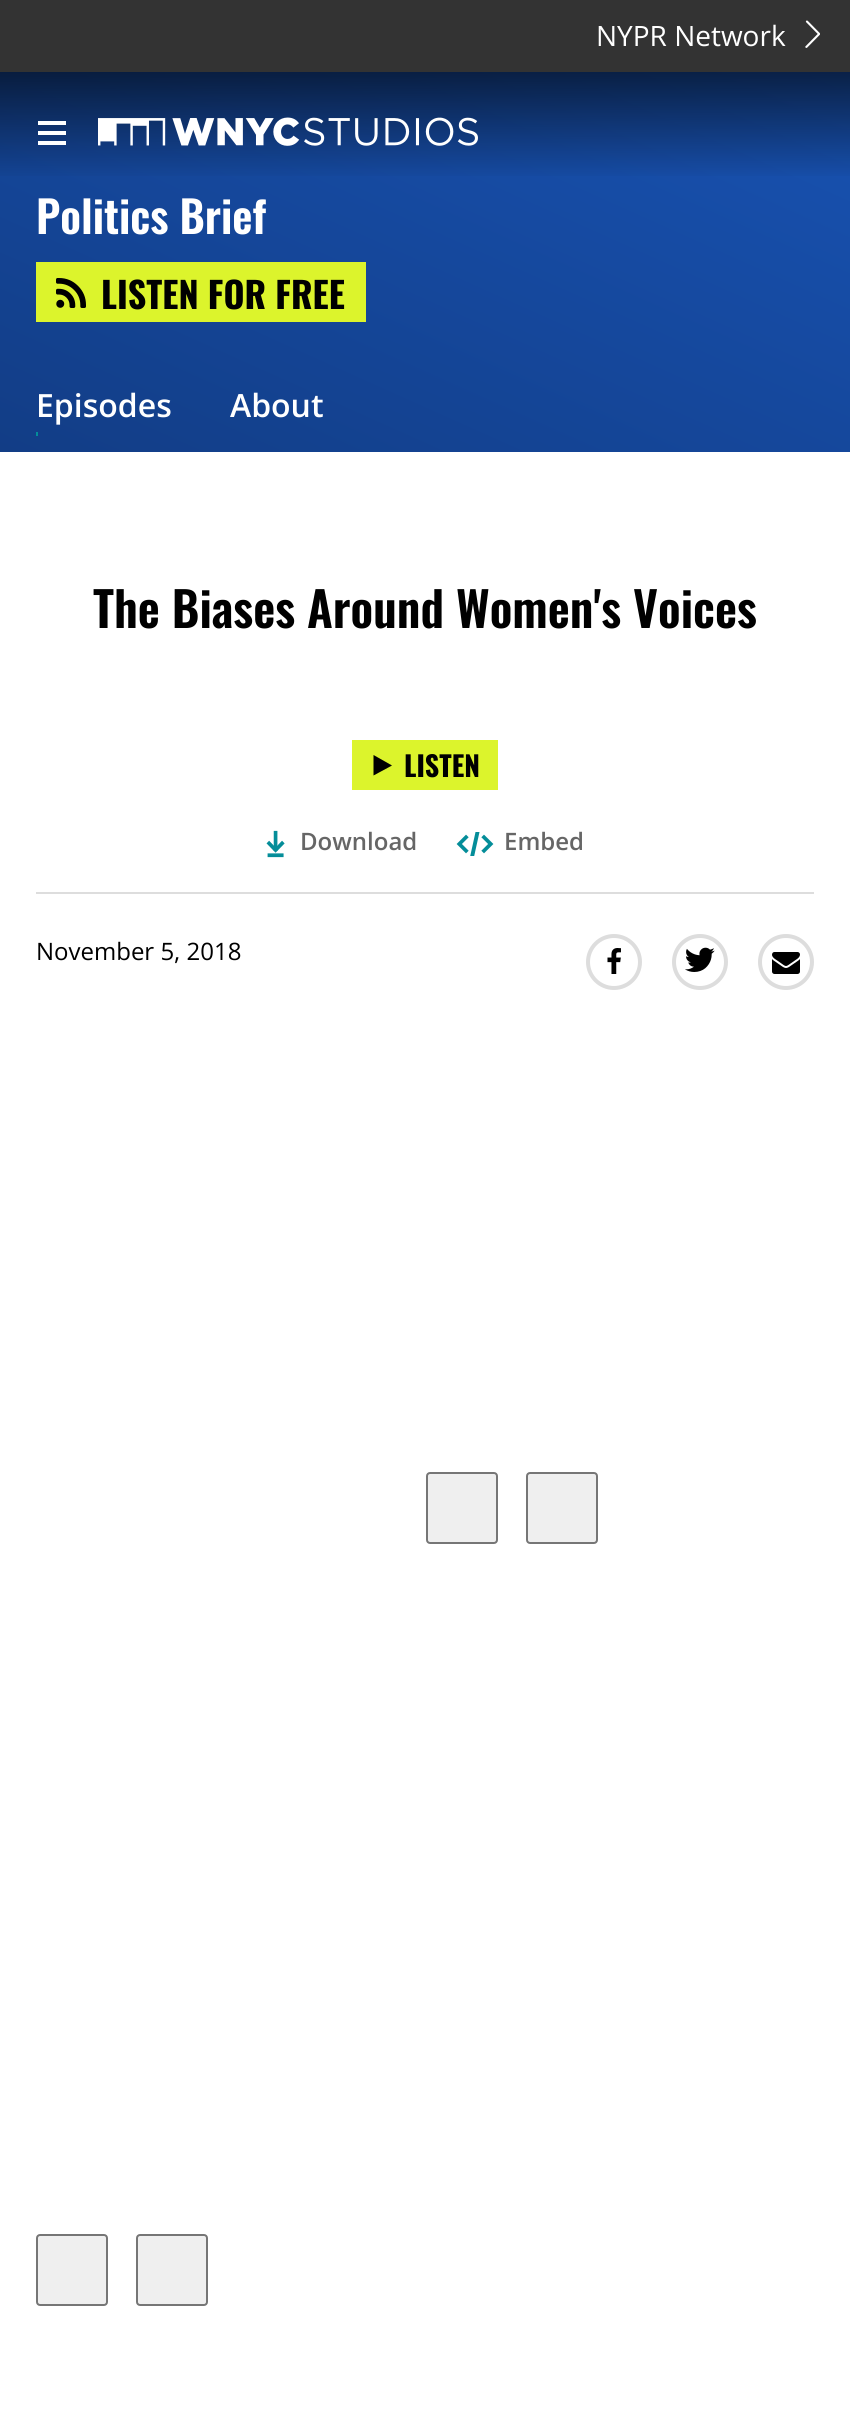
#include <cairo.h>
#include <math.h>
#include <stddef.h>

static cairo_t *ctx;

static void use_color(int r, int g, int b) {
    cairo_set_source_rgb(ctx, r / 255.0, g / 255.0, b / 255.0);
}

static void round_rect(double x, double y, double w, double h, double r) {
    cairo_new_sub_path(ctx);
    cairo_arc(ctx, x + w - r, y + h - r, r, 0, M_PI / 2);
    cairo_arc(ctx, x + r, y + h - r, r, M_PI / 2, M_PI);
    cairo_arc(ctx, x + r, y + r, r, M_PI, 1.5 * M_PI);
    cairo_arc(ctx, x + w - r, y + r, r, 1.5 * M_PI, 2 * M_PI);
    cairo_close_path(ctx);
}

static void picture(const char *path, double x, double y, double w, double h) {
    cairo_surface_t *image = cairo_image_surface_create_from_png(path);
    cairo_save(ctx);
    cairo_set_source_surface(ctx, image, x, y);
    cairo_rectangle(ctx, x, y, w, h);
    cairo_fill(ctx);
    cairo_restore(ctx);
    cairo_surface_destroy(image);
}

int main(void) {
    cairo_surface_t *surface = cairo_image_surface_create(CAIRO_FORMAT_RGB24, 850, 2409);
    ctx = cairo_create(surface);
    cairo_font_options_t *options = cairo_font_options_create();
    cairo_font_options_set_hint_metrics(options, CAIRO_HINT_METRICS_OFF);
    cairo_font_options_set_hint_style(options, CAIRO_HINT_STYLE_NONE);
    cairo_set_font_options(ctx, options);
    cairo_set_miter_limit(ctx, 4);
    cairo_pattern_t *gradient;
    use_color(255, 255, 255);
    cairo_paint(ctx);
    use_color(51, 51, 51);
    cairo_rectangle(ctx, 0, 0, 850, 72);
    cairo_fill(ctx);
    cairo_select_font_face(ctx, "Open Sans", CAIRO_FONT_SLANT_NORMAL, CAIRO_FONT_WEIGHT_NORMAL);
    cairo_set_font_size(ctx, 28);
    use_color(255, 255, 255);
    cairo_move_to(ctx, 596, 46);
    cairo_show_text(ctx, "NYPR Network");
    picture("img1.png", 805, 20, 15, 28);
    gradient = cairo_pattern_create_linear(283, 579, 567, -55);
    cairo_pattern_add_color_stop_rgba(gradient, 0, 0.071, 0.239, 0.525, 1);
    cairo_pattern_add_color_stop_rgba(gradient, 1, 0.094, 0.322, 0.698, 1);
    cairo_set_source(ctx, gradient);
    cairo_pattern_destroy(gradient);
    cairo_rectangle(ctx, 0, 72, 850, 380);
    cairo_fill(ctx);
    gradient = cairo_pattern_create_linear(425, 72, 425, 180);
    cairo_pattern_add_color_stop_rgba(gradient, 0, 0, 0, 0, 0.6);
    cairo_pattern_add_color_stop_rgba(gradient, 1, 0, 0, 0, 0);
    cairo_set_source(ctx, gradient);
    cairo_pattern_destroy(gradient);
    cairo_rectangle(ctx, 0, 72, 850, 104);
    cairo_fill(ctx);
    use_color(255, 255, 255);
    cairo_rectangle(ctx, 38, 121, 28, 4);
    cairo_fill(ctx);
    cairo_rectangle(ctx, 38, 131, 28, 4);
    cairo_fill(ctx);
    cairo_rectangle(ctx, 38, 141, 28, 4);
    cairo_fill(ctx);
    picture("img2.png", 98, 117, 380, 29);
    cairo_select_font_face(ctx, "Oswald SemiBold", CAIRO_FONT_SLANT_NORMAL, CAIRO_FONT_WEIGHT_NORMAL);
    cairo_set_font_size(ctx, 44);
    cairo_move_to(ctx, 36, 234);
    cairo_show_text(ctx, "Politics Brief");
    use_color(220, 244, 44);
    cairo_rectangle(ctx, 36, 262, 330, 60);
    cairo_fill(ctx);
    picture("img3.png", 56, 278, 30, 30);
    cairo_select_font_face(ctx, "Oswald", CAIRO_FONT_SLANT_NORMAL, CAIRO_FONT_WEIGHT_BOLD);
    cairo_set_font_size(ctx, 36);
    use_color(0, 0, 0);
    cairo_move_to(ctx, 101, 309);
    cairo_show_text(ctx, "LISTEN FOR FREE");
    cairo_select_font_face(ctx, "Open Sans SemiBold", CAIRO_FONT_SLANT_NORMAL, CAIRO_FONT_WEIGHT_NORMAL);
    cairo_set_font_size(ctx, 32);
    use_color(255, 255, 255);
    cairo_move_to(ctx, 36, 417);
    cairo_show_text(ctx, "Episodes");
    cairo_move_to(ctx, 230, 417);
    cairo_show_text(ctx, "About");
    use_color(4, 141, 153);
    cairo_rectangle(ctx, 36, 432, 2, 4);
    cairo_fill(ctx);
    cairo_select_font_face(ctx, "Oswald SemiBold", CAIRO_FONT_SLANT_NORMAL, CAIRO_FONT_WEIGHT_NORMAL);
    cairo_set_font_size(ctx, 48);
    use_color(0, 0, 0);
    cairo_move_to(ctx, 93, 628);
    cairo_show_text(ctx, "The Biases Around Women's Voices");
    use_color(220, 244, 44);
    cairo_rectangle(ctx, 352, 740, 146, 50);
    cairo_fill(ctx);
    use_color(0, 0, 0);
    cairo_set_fill_rule(ctx, CAIRO_FILL_RULE_EVEN_ODD);
    cairo_new_path(ctx);
    cairo_move_to(ctx, 392, 765.5);
    cairo_line_to(ctx, 373.5, 775.5);
    cairo_line_to(ctx, 373.5, 755);
    cairo_close_path(ctx);
    cairo_fill(ctx);
    cairo_select_font_face(ctx, "Oswald", CAIRO_FONT_SLANT_NORMAL, CAIRO_FONT_WEIGHT_BOLD);
    cairo_set_font_size(ctx, 28);
    cairo_move_to(ctx, 404, 777);
    cairo_show_text(ctx, "LISTEN");
    picture("img4.png", 266, 830, 19, 28);
    cairo_select_font_face(ctx, "Open Sans SemiBold", CAIRO_FONT_SLANT_NORMAL, CAIRO_FONT_WEIGHT_NORMAL);
    cairo_set_font_size(ctx, 24);
    use_color(102, 102, 102);
    cairo_move_to(ctx, 300, 850);
    cairo_show_text(ctx, "Download");
    picture("img5.png", 456, 832, 38, 24);
    cairo_move_to(ctx, 504, 850);
    cairo_show_text(ctx, "Embed");
    use_color(221, 221, 221);
    cairo_rectangle(ctx, 36, 892, 778, 2);
    cairo_fill(ctx);
    cairo_select_font_face(ctx, "Open Sans", CAIRO_FONT_SLANT_NORMAL, CAIRO_FONT_WEIGHT_NORMAL);
    use_color(0, 0, 0);
    cairo_move_to(ctx, 36, 960);
    cairo_show_text(ctx, "November 5, 2018");
    cairo_new_path(ctx);
    cairo_arc(ctx, 614, 962, 26, 0, 2 * M_PI);
    use_color(221, 221, 221);
    cairo_set_line_width(ctx, 4);
    cairo_stroke(ctx);
    picture("img6.png", 607, 948, 14, 26);
    cairo_arc(ctx, 700, 962, 26, 0, 2 * M_PI);
    cairo_stroke(ctx);
    picture("img7.png", 685, 947, 30, 25);
    cairo_arc(ctx, 786, 962, 26, 0, 2 * M_PI);
    cairo_stroke(ctx);
    picture("img8.png", 772, 952, 28, 22);
    use_color(239, 239, 239);
    round_rect(427, 1473, 70, 70, 3);
    cairo_fill_preserve(ctx);
    use_color(118, 118, 118);
    cairo_set_line_width(ctx, 2);
    cairo_stroke(ctx);
    use_color(239, 239, 239);
    round_rect(527, 1473, 70, 70, 3);
    cairo_fill_preserve(ctx);
    use_color(118, 118, 118);
    cairo_stroke(ctx);
    use_color(239, 239, 239);
    round_rect(37, 2235, 70, 70, 3);
    cairo_fill_preserve(ctx);
    use_color(118, 118, 118);
    cairo_stroke(ctx);
    use_color(239, 239, 239);
    round_rect(137, 2235, 70, 70, 3);
    cairo_fill_preserve(ctx);
    use_color(118, 118, 118);
    cairo_stroke(ctx);
    cairo_surface_write_to_png(surface, "result.png");
    cairo_font_options_destroy(options);
    cairo_destroy(ctx);
    cairo_surface_destroy(surface);
    return 0;
}
